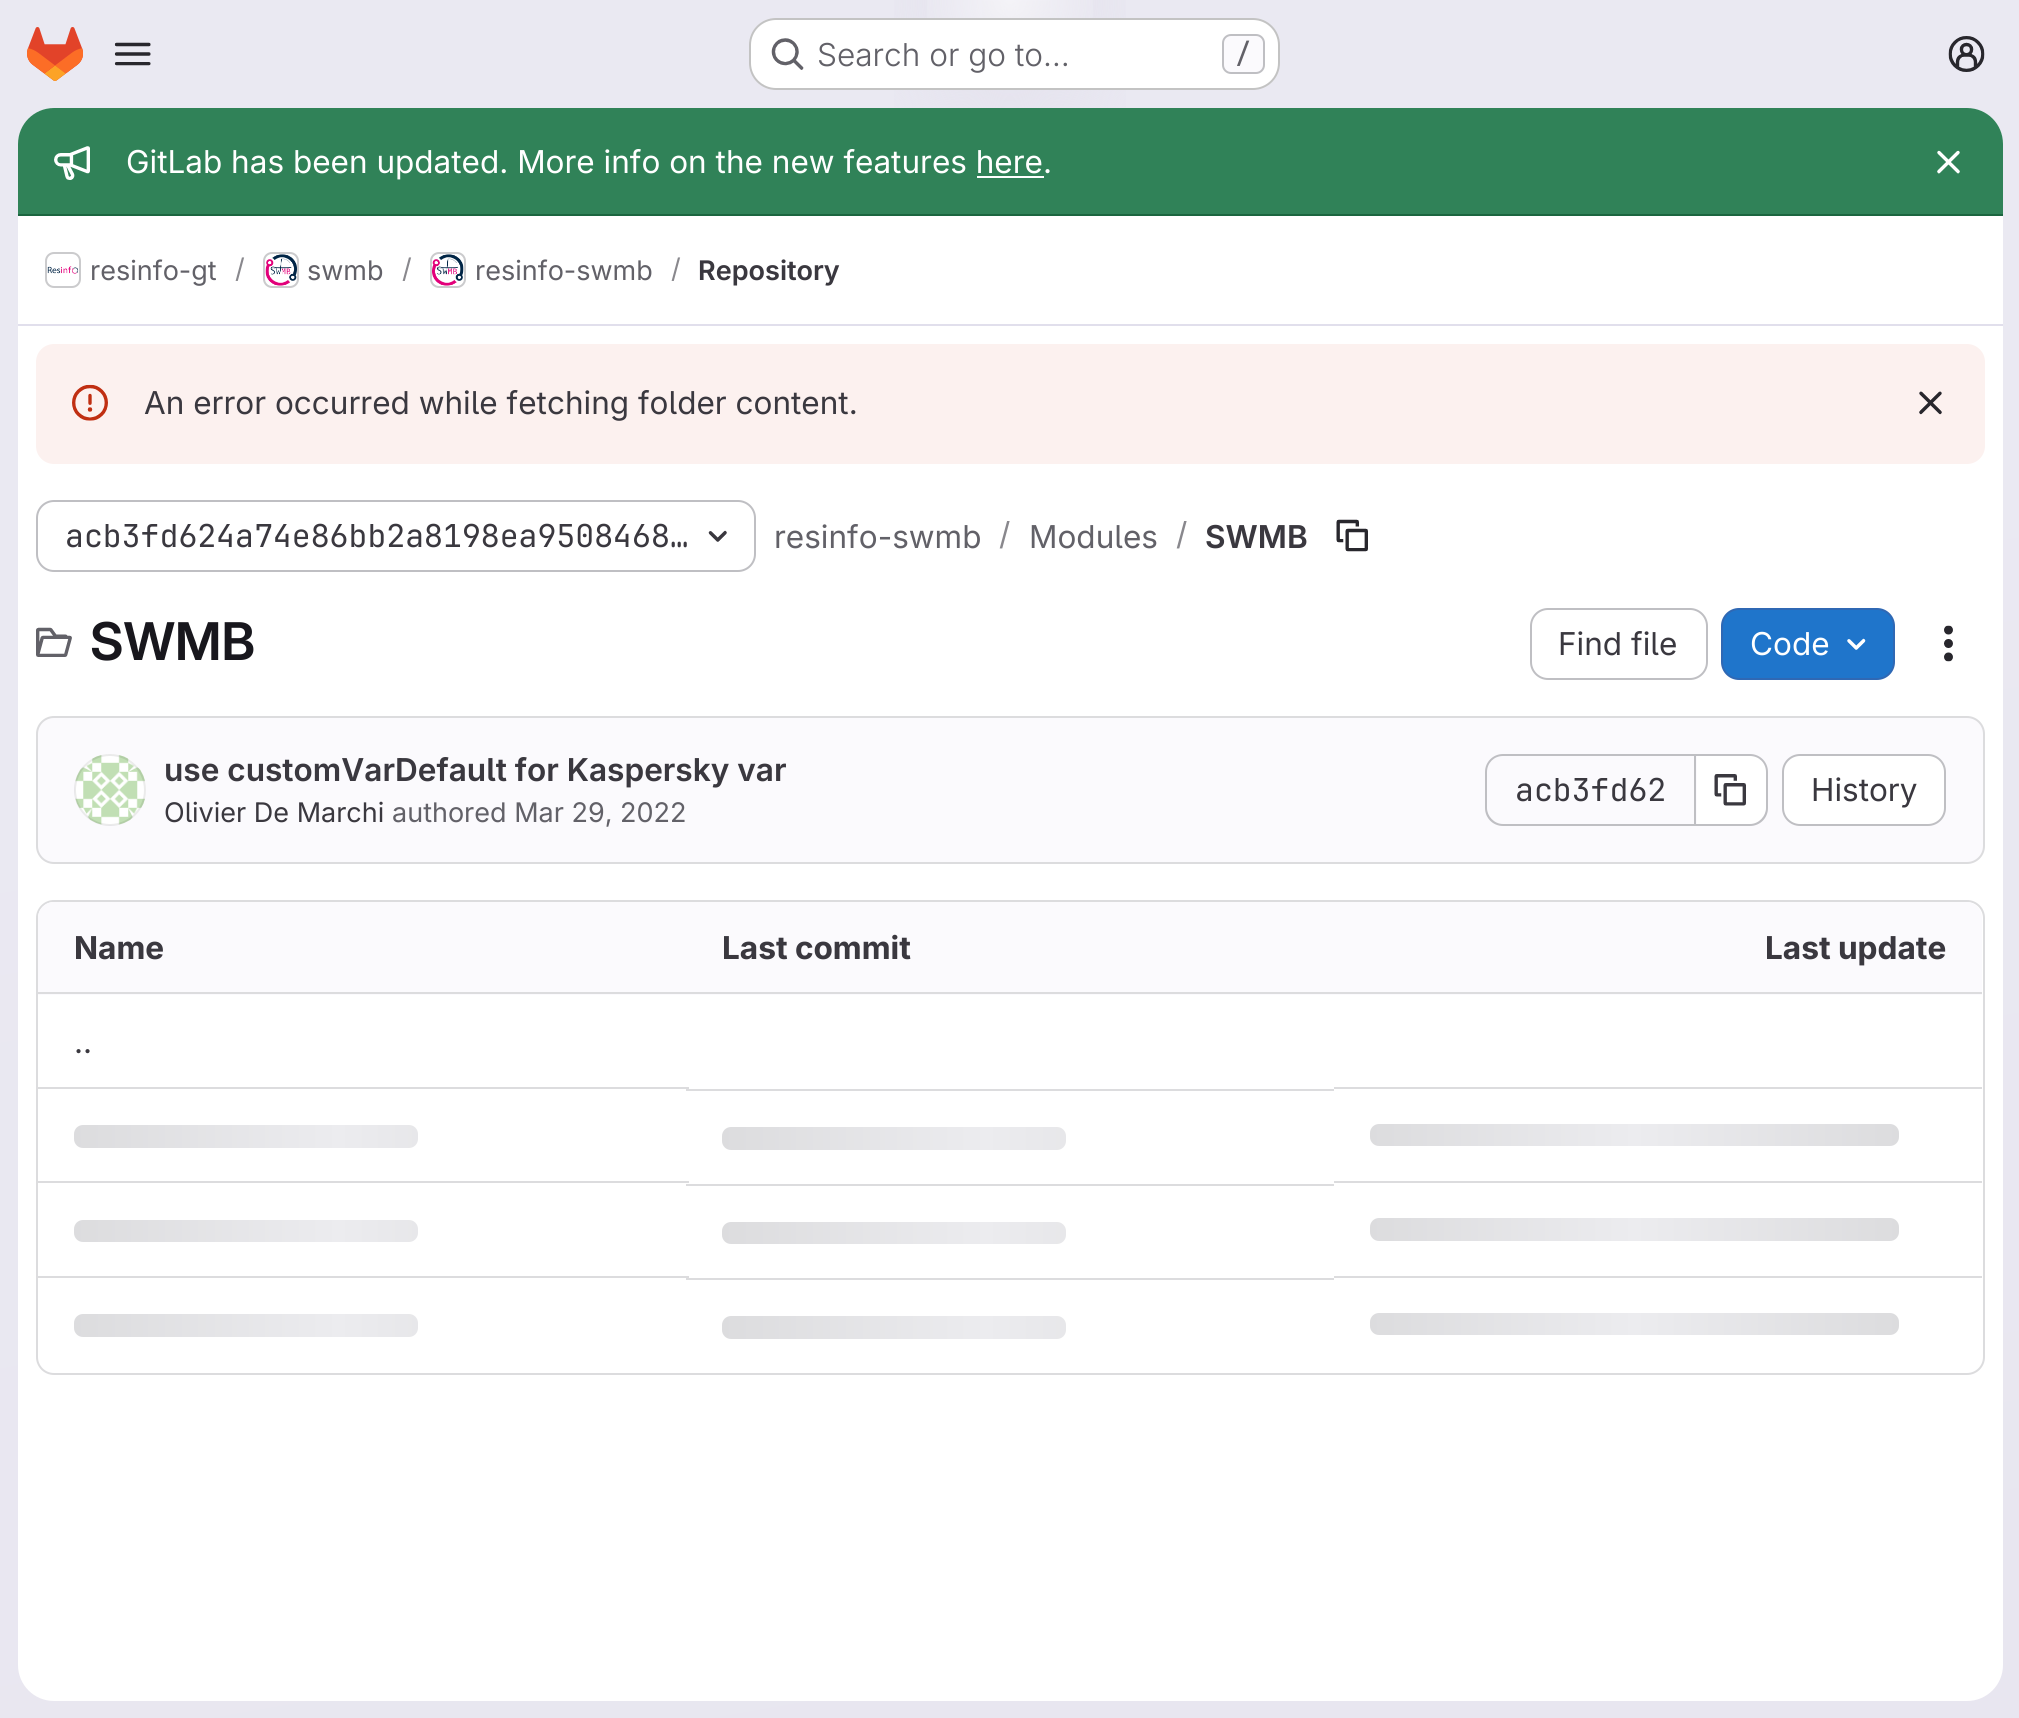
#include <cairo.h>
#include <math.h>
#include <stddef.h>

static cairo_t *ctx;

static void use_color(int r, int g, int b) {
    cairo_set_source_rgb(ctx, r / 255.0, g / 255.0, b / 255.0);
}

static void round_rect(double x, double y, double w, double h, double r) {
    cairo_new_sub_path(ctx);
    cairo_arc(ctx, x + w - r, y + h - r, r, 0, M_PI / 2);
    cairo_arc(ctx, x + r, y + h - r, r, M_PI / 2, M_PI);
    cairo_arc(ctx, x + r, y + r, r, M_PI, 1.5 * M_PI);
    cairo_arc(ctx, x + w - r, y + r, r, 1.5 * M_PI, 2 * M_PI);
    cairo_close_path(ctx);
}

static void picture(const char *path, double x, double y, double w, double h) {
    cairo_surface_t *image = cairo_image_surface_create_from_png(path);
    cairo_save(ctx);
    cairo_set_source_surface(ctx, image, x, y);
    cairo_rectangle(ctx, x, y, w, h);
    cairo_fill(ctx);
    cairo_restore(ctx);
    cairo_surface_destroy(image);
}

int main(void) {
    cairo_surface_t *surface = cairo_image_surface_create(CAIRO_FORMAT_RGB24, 2019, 1718);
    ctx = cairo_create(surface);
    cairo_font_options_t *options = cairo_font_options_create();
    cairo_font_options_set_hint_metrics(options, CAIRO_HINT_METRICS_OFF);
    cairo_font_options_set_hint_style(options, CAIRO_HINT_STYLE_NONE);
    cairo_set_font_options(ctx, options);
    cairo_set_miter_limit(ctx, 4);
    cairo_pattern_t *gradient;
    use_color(255, 255, 255);
    cairo_paint(ctx);
    gradient = cairo_pattern_create_linear(1188, 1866, 833, -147);
    cairo_pattern_add_color_stop_rgba(gradient, 0, 0.91, 0.902, 0.941, 1);
    cairo_pattern_add_color_stop_rgba(gradient, 0.7, 0.918, 0.914, 0.949, 1);
    cairo_set_source(ctx, gradient);
    cairo_pattern_destroy(gradient);
    cairo_rectangle(ctx, 0, 0, 2019, 1718);
    cairo_fill(ctx);
    gradient = cairo_pattern_create_radial(0, 0, 0, 0, 0, 1);
    cairo_pattern_set_matrix(gradient, &(cairo_matrix_t){1.0 / 1010, 0, 0, 1.0 / 1719, -1.0 * 1010 / 1010, -1.0 * 0 / 1719});
    cairo_pattern_add_color_stop_rgba(gradient, 0, 0.894, 0.886, 0.929, 1);
    cairo_pattern_add_color_stop_rgba(gradient, 0.16, 0.894, 0.886, 0.929, 0);
    cairo_set_source(ctx, gradient);
    cairo_pattern_destroy(gradient);
    cairo_rectangle(ctx, 894, 0, 232, 108);
    cairo_fill(ctx);
    gradient = cairo_pattern_create_radial(0, 0, 0, 0, 0, 1);
    cairo_pattern_set_matrix(gradient, &(cairo_matrix_t){1.0 / 1010, 0, 0, 1.0 / 1719, -1.0 * 1010 / 1010, -1.0 * 0 / 1719});
    cairo_pattern_add_color_stop_rgba(gradient, 0, 0.894, 0.886, 0.925, 1);
    cairo_pattern_add_color_stop_rgba(gradient, 0.11, 0.894, 0.886, 0.925, 0);
    cairo_set_source(ctx, gradient);
    cairo_pattern_destroy(gradient);
    cairo_rectangle(ctx, 982, 1, 68, 77);
    cairo_fill(ctx);
    gradient = cairo_pattern_create_radial(1010, 0, 0, 1010, 0, 1994);
    cairo_pattern_add_color_stop_rgba(gradient, 0, 1, 1, 1, 0.6);
    cairo_pattern_add_color_stop_rgba(gradient, 0.05, 1, 1, 1, 0);
    cairo_set_source(ctx, gradient);
    cairo_pattern_destroy(gradient);
    cairo_rectangle(ctx, 927, 0, 166, 84);
    cairo_fill(ctx);
    picture("img1.png", 27, 27, 56, 54);
    picture("img2.png", 114, 42, 37, 24);
    use_color(255, 255, 255);
    round_rect(749, 18, 531, 72, 27);
    cairo_fill(ctx);
    round_rect(750, 19, 529, 70, 26);
    cairo_set_source_rgba(ctx, 0.02, 0.02, 0.024, 0.24);
    cairo_stroke(ctx);
    picture("img3.png", 771, 38, 33, 32);
    cairo_select_font_face(ctx, "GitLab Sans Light", CAIRO_FONT_SLANT_NORMAL, CAIRO_FONT_WEIGHT_NORMAL);
    cairo_set_font_size(ctx, 31.5);
    use_color(98, 97, 104);
    cairo_move_to(ctx, 817, 66);
    cairo_show_text(ctx, "Search or go to…");
    use_color(251, 250, 253);
    round_rect(1223, 35, 41, 38, 8);
    cairo_fill_preserve(ctx);
    use_color(191, 191, 195);
    cairo_stroke(ctx);
    cairo_select_font_face(ctx, "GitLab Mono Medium", CAIRO_FONT_SLANT_NORMAL, CAIRO_FONT_WEIGHT_NORMAL);
    cairo_set_font_size(ctx, 27);
    use_color(98, 97, 104);
    cairo_move_to(ctx, 1235, 63);
    cairo_show_text(ctx, "/");
    picture("img4.png", 1948, 36, 37, 36);
    use_color(255, 255, 255);
    round_rect(18, 108, 1985, 1593, 36);
    cairo_fill(ctx);
    use_color(48, 130, 88);
    cairo_new_path(ctx);
    cairo_move_to(ctx, 54, 108);
    cairo_line_to(ctx, 1967, 108);
    cairo_curve_to(ctx, 1987, 108, 2003, 124, 2003, 144);
    cairo_line_to(ctx, 2003, 216);
    cairo_line_to(ctx, 18, 216);
    cairo_line_to(ctx, 18, 144);
    cairo_curve_to(ctx, 18, 124, 34, 108, 54, 108);
    cairo_close_path(ctx);
    cairo_fill(ctx);
    use_color(27, 101, 63);
    cairo_rectangle(ctx, 18, 214, 1985, 2);
    cairo_fill(ctx);
    picture("img5.png", 54, 146, 36, 34);
    cairo_select_font_face(ctx, "GitLab Sans", CAIRO_FONT_SLANT_NORMAL, CAIRO_FONT_WEIGHT_NORMAL);
    cairo_set_font_size(ctx, 31.5);
    use_color(255, 255, 255);
    cairo_move_to(ctx, 126, 173);
    cairo_show_text(ctx, "GitLab has been updated. More info on the new features here.");
    cairo_rectangle(ctx, 977, 176, 67, 2);
    cairo_fill(ctx);
    picture("img6.png", 1937, 150, 23, 24);
    use_color(225, 223, 236);
    cairo_rectangle(ctx, 18, 324, 1985, 2);
    cairo_fill(ctx);
    round_rect(46, 253, 34, 34, 8);
    use_color(220, 220, 222);
    cairo_stroke(ctx);
    picture("img7.png", 47, 266, 32, 8);
    round_rect(46, 253, 34, 34, 8);
    cairo_set_source_rgba(ctx, 0.02, 0.02, 0.024, 0.08);
    cairo_stroke(ctx);
    cairo_set_font_size(ctx, 27);
    use_color(98, 97, 104);
    cairo_move_to(ctx, 90, 280);
    cairo_show_text(ctx, "resinfo-gt");
    use_color(137, 136, 141);
    cairo_move_to(ctx, 235, 278);
    cairo_show_text(ctx, "/");
    round_rect(264, 253, 34, 34, 8);
    use_color(220, 220, 222);
    cairo_stroke(ctx);
    picture("img8.png", 265, 254, 32, 32);
    round_rect(264, 253, 34, 34, 8);
    cairo_set_source_rgba(ctx, 0.02, 0.02, 0.024, 0.08);
    cairo_stroke(ctx);
    use_color(98, 97, 104);
    cairo_move_to(ctx, 307, 280);
    cairo_show_text(ctx, "swmb");
    use_color(137, 136, 141);
    cairo_move_to(ctx, 402, 278);
    cairo_show_text(ctx, "/");
    round_rect(431, 253, 34, 34, 8);
    use_color(220, 220, 222);
    cairo_stroke(ctx);
    picture("img9.png", 432, 254, 32, 32);
    round_rect(431, 253, 34, 34, 8);
    cairo_set_source_rgba(ctx, 0.02, 0.02, 0.024, 0.08);
    cairo_stroke(ctx);
    use_color(98, 97, 104);
    cairo_move_to(ctx, 475, 280);
    cairo_show_text(ctx, "resinfo-swmb");
    use_color(137, 136, 141);
    cairo_move_to(ctx, 671, 278);
    cairo_show_text(ctx, "/");
    cairo_select_font_face(ctx, "GitLab Sans SemiBold", CAIRO_FONT_SLANT_NORMAL, CAIRO_FONT_WEIGHT_NORMAL);
    use_color(58, 56, 63);
    cairo_move_to(ctx, 698, 280);
    cairo_show_text(ctx, "Repository");
    use_color(252, 241, 239);
    round_rect(36, 344, 1949, 120, 18);
    cairo_fill(ctx);
    picture("img10.png", 72, 384, 36, 37);
    cairo_select_font_face(ctx, "GitLab Sans", CAIRO_FONT_SLANT_NORMAL, CAIRO_FONT_WEIGHT_NORMAL);
    cairo_set_font_size(ctx, 31.5);
    use_color(58, 56, 63);
    cairo_move_to(ctx, 144, 414);
    cairo_show_text(ctx, "An error occurred while fetching folder content.");
    picture("img11.png", 1919, 391, 23, 24);
    round_rect(37, 501, 718, 70, 17);
    use_color(191, 191, 195);
    cairo_stroke(ctx);
    cairo_select_font_face(ctx, "GitLab Mono", CAIRO_FONT_SLANT_NORMAL, CAIRO_FONT_WEIGHT_NORMAL);
    use_color(58, 56, 63);
    cairo_move_to(ctx, 65, 547);
    cairo_show_text(ctx, "acb3fd624a74e86bb2a8198ea9508468…");
    picture("img12.png", 708, 530, 19, 12);
    cairo_select_font_face(ctx, "GitLab Sans", CAIRO_FONT_SLANT_NORMAL, CAIRO_FONT_WEIGHT_NORMAL);
    use_color(98, 97, 104);
    cairo_move_to(ctx, 774, 548);
    cairo_show_text(ctx, "resinfo-swmb");
    use_color(137, 136, 141);
    cairo_move_to(ctx, 999, 545);
    cairo_show_text(ctx, "/");
    use_color(98, 97, 104);
    cairo_move_to(ctx, 1029, 548);
    cairo_show_text(ctx, "Modules");
    use_color(137, 136, 141);
    cairo_move_to(ctx, 1176, 545);
    cairo_show_text(ctx, "/");
    cairo_select_font_face(ctx, "GitLab Sans SemiBold", CAIRO_FONT_SLANT_NORMAL, CAIRO_FONT_WEIGHT_NORMAL);
    use_color(58, 56, 63);
    cairo_move_to(ctx, 1205, 548);
    cairo_show_text(ctx, "SWMB");
    picture("img13.png", 1336, 519, 32, 33);
    picture("img14.png", 36, 627, 36, 30);
    cairo_select_font_face(ctx, "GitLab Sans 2 SemiBold", CAIRO_FONT_SLANT_NORMAL, CAIRO_FONT_WEIGHT_NORMAL);
    cairo_set_font_size(ctx, 52);
    use_color(24, 23, 29);
    cairo_move_to(ctx, 90, 660);
    cairo_show_text(ctx, "SWMB");
    round_rect(1531, 609, 176, 70, 17);
    use_color(191, 191, 195);
    cairo_stroke(ctx);
    cairo_select_font_face(ctx, "GitLab Sans", CAIRO_FONT_SLANT_NORMAL, CAIRO_FONT_WEIGHT_NORMAL);
    cairo_set_font_size(ctx, 31.5);
    use_color(58, 56, 63);
    cairo_move_to(ctx, 1558, 655);
    cairo_show_text(ctx, "Find file");
    use_color(31, 117, 203);
    round_rect(1722, 609, 172, 70, 17);
    cairo_fill_preserve(ctx);
    use_color(47, 104, 180);
    cairo_stroke(ctx);
    use_color(255, 255, 255);
    cairo_move_to(ctx, 1750, 655);
    cairo_show_text(ctx, "Code");
    picture("img15.png", 1847, 638, 19, 12);
    picture("img16.png", 1944, 625, 9, 37);
    use_color(251, 250, 253);
    round_rect(37, 717, 1947, 146, 17);
    cairo_fill_preserve(ctx);
    use_color(220, 220, 222);
    cairo_stroke(ctx);
    picture("img17.png", 75, 754, 71, 71);
    cairo_arc(ctx, 110, 790, 35, 0, 2 * M_PI);
    cairo_set_source_rgba(ctx, 0.02, 0.02, 0.024, 0.08);
    cairo_stroke(ctx);
    cairo_select_font_face(ctx, "GitLab Sans SemiBold", CAIRO_FONT_SLANT_NORMAL, CAIRO_FONT_WEIGHT_NORMAL);
    use_color(58, 56, 63);
    cairo_move_to(ctx, 164, 781);
    cairo_show_text(ctx, "use customVarDefault for Kaspersky var");
    cairo_select_font_face(ctx, "GitLab Sans", CAIRO_FONT_SLANT_NORMAL, CAIRO_FONT_WEIGHT_NORMAL);
    cairo_set_font_size(ctx, 27);
    cairo_move_to(ctx, 164, 822);
    cairo_show_text(ctx, "Olivier De Marchi");
    use_color(98, 97, 104);
    cairo_move_to(ctx, 392, 822);
    cairo_show_text(ctx, "authored Mar 29, 2022");
    use_color(191, 191, 195);
    cairo_set_fill_rule(ctx, CAIRO_FILL_RULE_EVEN_ODD);
    cairo_new_path(ctx);
    cairo_move_to(ctx, 1503, 754);
    cairo_line_to(ctx, 1694, 754);
    cairo_line_to(ctx, 1694, 826);
    cairo_line_to(ctx, 1503, 826);
    cairo_curve_to(ctx, 1493, 826, 1485, 818, 1485, 808);
    cairo_line_to(ctx, 1485, 772);
    cairo_curve_to(ctx, 1485, 762, 1493, 754, 1503, 754);
    cairo_close_path(ctx);
    cairo_move_to(ctx, 1503, 756);
    cairo_line_to(ctx, 1694, 756);
    cairo_line_to(ctx, 1694, 824);
    cairo_line_to(ctx, 1503, 824);
    cairo_curve_to(ctx, 1494, 824, 1487, 816, 1487, 808);
    cairo_line_to(ctx, 1487, 772);
    cairo_curve_to(ctx, 1487, 763, 1494, 756, 1503, 756);
    cairo_close_path(ctx);
    cairo_fill(ctx);
    cairo_select_font_face(ctx, "GitLab Mono", CAIRO_FONT_SLANT_NORMAL, CAIRO_FONT_WEIGHT_NORMAL);
    cairo_set_font_size(ctx, 31.5);
    use_color(58, 56, 63);
    cairo_move_to(ctx, 1515, 801);
    cairo_show_text(ctx, "acb3fd62");
    use_color(255, 255, 255);
    cairo_new_path(ctx);
    cairo_move_to(ctx, 1697, 756);
    cairo_line_to(ctx, 1750, 756);
    cairo_curve_to(ctx, 1759, 756, 1766, 763, 1766, 772);
    cairo_line_to(ctx, 1766, 808);
    cairo_curve_to(ctx, 1766, 817, 1759, 824, 1750, 824);
    cairo_line_to(ctx, 1697, 824);
    cairo_close_path(ctx);
    cairo_fill(ctx);
    use_color(191, 191, 195);
    cairo_new_path(ctx);
    cairo_move_to(ctx, 1696, 754);
    cairo_line_to(ctx, 1750, 754);
    cairo_curve_to(ctx, 1760, 754, 1768, 762, 1768, 772);
    cairo_line_to(ctx, 1768, 808);
    cairo_curve_to(ctx, 1768, 818, 1760, 826, 1750, 826);
    cairo_line_to(ctx, 1696, 826);
    cairo_close_path(ctx);
    cairo_move_to(ctx, 1696, 756);
    cairo_line_to(ctx, 1750, 756);
    cairo_curve_to(ctx, 1759, 756, 1766, 763, 1766, 772);
    cairo_line_to(ctx, 1766, 808);
    cairo_curve_to(ctx, 1766, 816, 1759, 824, 1750, 824);
    cairo_line_to(ctx, 1696, 824);
    cairo_close_path(ctx);
    cairo_fill(ctx);
    cairo_rectangle(ctx, 1694, 754, 2, 72);
    cairo_fill(ctx);
    picture("img18.png", 1714, 774, 32, 32);
    use_color(255, 255, 255);
    round_rect(1783, 755, 162, 70, 17);
    cairo_fill_preserve(ctx);
    use_color(191, 191, 195);
    cairo_stroke(ctx);
    cairo_select_font_face(ctx, "GitLab Sans", CAIRO_FONT_SLANT_NORMAL, CAIRO_FONT_WEIGHT_NORMAL);
    use_color(58, 56, 63);
    cairo_move_to(ctx, 1811, 801);
    cairo_show_text(ctx, "History");
    round_rect(37, 901, 1947, 473, 17);
    use_color(220, 220, 222);
    cairo_stroke(ctx);
    use_color(251, 250, 253);
    cairo_new_path(ctx);
    cairo_move_to(ctx, 54, 902);
    cairo_line_to(ctx, 686, 902);
    cairo_line_to(ctx, 686, 995);
    cairo_line_to(ctx, 38, 995);
    cairo_line_to(ctx, 38, 918);
    cairo_curve_to(ctx, 38, 909, 45, 902, 54, 902);
    cairo_close_path(ctx);
    cairo_fill(ctx);
    cairo_select_font_face(ctx, "GitLab Sans", CAIRO_FONT_SLANT_NORMAL, CAIRO_FONT_WEIGHT_BOLD);
    use_color(58, 56, 63);
    cairo_move_to(ctx, 74, 959);
    cairo_show_text(ctx, "Name");
    use_color(251, 250, 253);
    cairo_rectangle(ctx, 686, 902, 648, 93);
    cairo_fill(ctx);
    use_color(58, 56, 63);
    cairo_move_to(ctx, 722, 959);
    cairo_show_text(ctx, "Last commit");
    use_color(251, 250, 253);
    cairo_new_path(ctx);
    cairo_move_to(ctx, 1334, 902);
    cairo_line_to(ctx, 1966, 902);
    cairo_curve_to(ctx, 1975, 902, 1982, 909, 1982, 918);
    cairo_line_to(ctx, 1982, 995);
    cairo_line_to(ctx, 1334, 995);
    cairo_close_path(ctx);
    cairo_fill(ctx);
    use_color(58, 56, 63);
    cairo_move_to(ctx, 1765, 959);
    cairo_show_text(ctx, "Last update");
    use_color(220, 220, 222);
    cairo_rectangle(ctx, 38, 992, 1944, 2);
    cairo_fill(ctx);
    cairo_select_font_face(ctx, "GitLab Sans", CAIRO_FONT_SLANT_NORMAL, CAIRO_FONT_WEIGHT_NORMAL);
    use_color(58, 56, 63);
    cairo_move_to(ctx, 74, 1053);
    cairo_show_text(ctx, "..");
    use_color(220, 220, 222);
    cairo_rectangle(ctx, 38, 1087, 651, 2);
    cairo_fill(ctx);
    gradient = cairo_pattern_create_linear(74, 1125, 603, 1125);
    cairo_pattern_add_color_stop_rgba(gradient, 0, 0.863, 0.863, 0.871, 1);
    cairo_pattern_add_color_stop_rgba(gradient, 0.5, 0.925, 0.925, 0.937, 1);
    cairo_pattern_add_color_stop_rgba(gradient, 1, 0.863, 0.863, 0.871, 1);
    cairo_set_source(ctx, gradient);
    cairo_pattern_destroy(gradient);
    round_rect(74, 1125, 344, 23, 9);
    cairo_fill(ctx);
    use_color(220, 220, 222);
    cairo_rectangle(ctx, 686, 1089, 648, 2);
    cairo_fill(ctx);
    gradient = cairo_pattern_create_linear(722, 1127, 1251, 1127);
    cairo_pattern_add_color_stop_rgba(gradient, 0, 0.863, 0.863, 0.871, 1);
    cairo_pattern_add_color_stop_rgba(gradient, 0.5, 0.925, 0.925, 0.937, 1);
    cairo_pattern_add_color_stop_rgba(gradient, 1, 0.863, 0.863, 0.871, 1);
    cairo_set_source(ctx, gradient);
    cairo_pattern_destroy(gradient);
    round_rect(722, 1127, 344, 23, 9);
    cairo_fill(ctx);
    use_color(220, 220, 222);
    cairo_rectangle(ctx, 1334, 1087, 648, 2);
    cairo_fill(ctx);
    gradient = cairo_pattern_create_linear(1370, 1124, 1899, 1124);
    cairo_pattern_add_color_stop_rgba(gradient, 0, 0.863, 0.863, 0.871, 1);
    cairo_pattern_add_color_stop_rgba(gradient, 0.5, 0.925, 0.925, 0.937, 1);
    cairo_pattern_add_color_stop_rgba(gradient, 1, 0.863, 0.863, 0.871, 1);
    cairo_set_source(ctx, gradient);
    cairo_pattern_destroy(gradient);
    round_rect(1370, 1124, 529, 22, 9);
    cairo_fill(ctx);
    use_color(220, 220, 222);
    cairo_rectangle(ctx, 38, 1181, 651, 2);
    cairo_fill(ctx);
    gradient = cairo_pattern_create_linear(74, 1220, 603, 1220);
    cairo_pattern_add_color_stop_rgba(gradient, 0, 0.863, 0.863, 0.871, 1);
    cairo_pattern_add_color_stop_rgba(gradient, 0.5, 0.925, 0.925, 0.937, 1);
    cairo_pattern_add_color_stop_rgba(gradient, 1, 0.863, 0.863, 0.871, 1);
    cairo_set_source(ctx, gradient);
    cairo_pattern_destroy(gradient);
    round_rect(74, 1220, 344, 22, 9);
    cairo_fill(ctx);
    use_color(220, 220, 222);
    cairo_rectangle(ctx, 686, 1184, 648, 2);
    cairo_fill(ctx);
    gradient = cairo_pattern_create_linear(722, 1222, 1251, 1222);
    cairo_pattern_add_color_stop_rgba(gradient, 0, 0.863, 0.863, 0.871, 1);
    cairo_pattern_add_color_stop_rgba(gradient, 0.5, 0.925, 0.925, 0.937, 1);
    cairo_pattern_add_color_stop_rgba(gradient, 1, 0.863, 0.863, 0.871, 1);
    cairo_set_source(ctx, gradient);
    cairo_pattern_destroy(gradient);
    round_rect(722, 1222, 344, 22, 9);
    cairo_fill(ctx);
    use_color(220, 220, 222);
    cairo_rectangle(ctx, 1334, 1181, 648, 2);
    cairo_fill(ctx);
    gradient = cairo_pattern_create_linear(1370, 1218, 1899, 1218);
    cairo_pattern_add_color_stop_rgba(gradient, 0, 0.863, 0.863, 0.871, 1);
    cairo_pattern_add_color_stop_rgba(gradient, 0.5, 0.925, 0.925, 0.937, 1);
    cairo_pattern_add_color_stop_rgba(gradient, 1, 0.863, 0.863, 0.871, 1);
    cairo_set_source(ctx, gradient);
    cairo_pattern_destroy(gradient);
    round_rect(1370, 1218, 529, 23, 9);
    cairo_fill(ctx);
    use_color(220, 220, 222);
    cairo_rectangle(ctx, 38, 1276, 651, 2);
    cairo_fill(ctx);
    gradient = cairo_pattern_create_linear(74, 1314, 603, 1314);
    cairo_pattern_add_color_stop_rgba(gradient, 0, 0.863, 0.863, 0.871, 1);
    cairo_pattern_add_color_stop_rgba(gradient, 0.5, 0.925, 0.925, 0.937, 1);
    cairo_pattern_add_color_stop_rgba(gradient, 1, 0.863, 0.863, 0.871, 1);
    cairo_set_source(ctx, gradient);
    cairo_pattern_destroy(gradient);
    round_rect(74, 1314, 344, 23, 9);
    cairo_fill(ctx);
    use_color(220, 220, 222);
    cairo_rectangle(ctx, 686, 1278, 648, 2);
    cairo_fill(ctx);
    gradient = cairo_pattern_create_linear(722, 1316, 1251, 1316);
    cairo_pattern_add_color_stop_rgba(gradient, 0, 0.863, 0.863, 0.871, 1);
    cairo_pattern_add_color_stop_rgba(gradient, 0.5, 0.925, 0.925, 0.937, 1);
    cairo_pattern_add_color_stop_rgba(gradient, 1, 0.863, 0.863, 0.871, 1);
    cairo_set_source(ctx, gradient);
    cairo_pattern_destroy(gradient);
    round_rect(722, 1316, 344, 23, 9);
    cairo_fill(ctx);
    use_color(220, 220, 222);
    cairo_rectangle(ctx, 1334, 1276, 648, 2);
    cairo_fill(ctx);
    gradient = cairo_pattern_create_linear(1370, 1313, 1899, 1313);
    cairo_pattern_add_color_stop_rgba(gradient, 0, 0.863, 0.863, 0.871, 1);
    cairo_pattern_add_color_stop_rgba(gradient, 0.5, 0.925, 0.925, 0.937, 1);
    cairo_pattern_add_color_stop_rgba(gradient, 1, 0.863, 0.863, 0.871, 1);
    cairo_set_source(ctx, gradient);
    cairo_pattern_destroy(gradient);
    round_rect(1370, 1313, 529, 22, 9);
    cairo_fill(ctx);
    cairo_surface_write_to_png(surface, "result.png");
    cairo_font_options_destroy(options);
    cairo_destroy(ctx);
    cairo_surface_destroy(surface);
    return 0;
}
